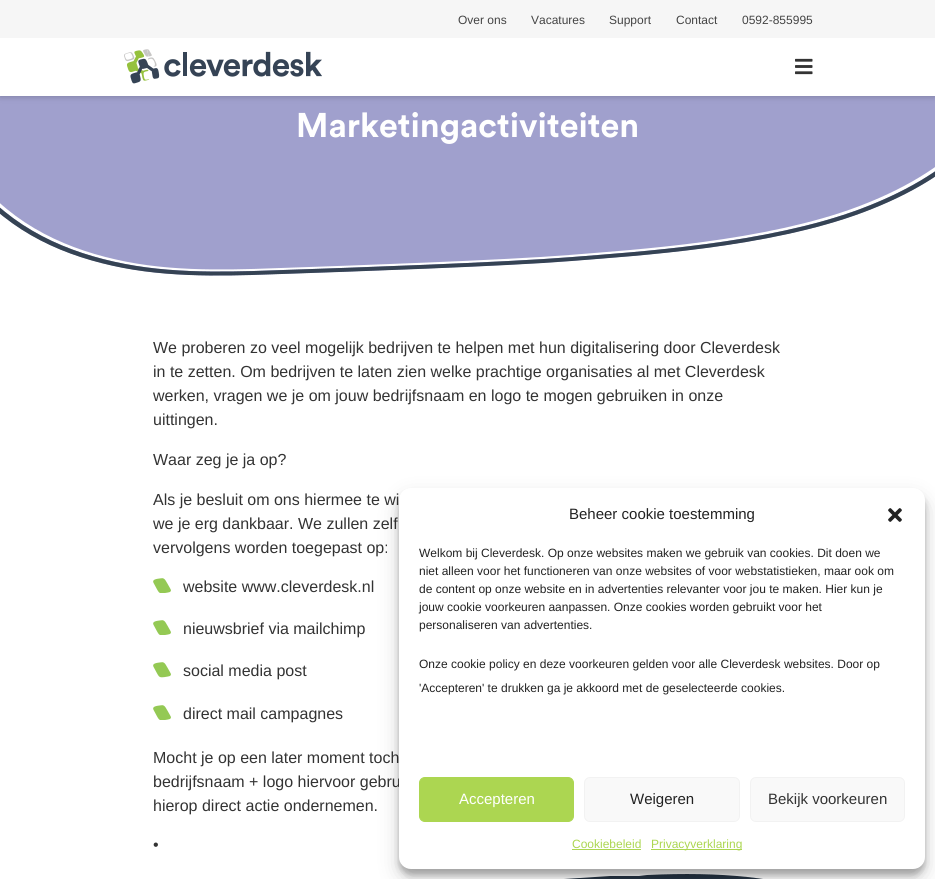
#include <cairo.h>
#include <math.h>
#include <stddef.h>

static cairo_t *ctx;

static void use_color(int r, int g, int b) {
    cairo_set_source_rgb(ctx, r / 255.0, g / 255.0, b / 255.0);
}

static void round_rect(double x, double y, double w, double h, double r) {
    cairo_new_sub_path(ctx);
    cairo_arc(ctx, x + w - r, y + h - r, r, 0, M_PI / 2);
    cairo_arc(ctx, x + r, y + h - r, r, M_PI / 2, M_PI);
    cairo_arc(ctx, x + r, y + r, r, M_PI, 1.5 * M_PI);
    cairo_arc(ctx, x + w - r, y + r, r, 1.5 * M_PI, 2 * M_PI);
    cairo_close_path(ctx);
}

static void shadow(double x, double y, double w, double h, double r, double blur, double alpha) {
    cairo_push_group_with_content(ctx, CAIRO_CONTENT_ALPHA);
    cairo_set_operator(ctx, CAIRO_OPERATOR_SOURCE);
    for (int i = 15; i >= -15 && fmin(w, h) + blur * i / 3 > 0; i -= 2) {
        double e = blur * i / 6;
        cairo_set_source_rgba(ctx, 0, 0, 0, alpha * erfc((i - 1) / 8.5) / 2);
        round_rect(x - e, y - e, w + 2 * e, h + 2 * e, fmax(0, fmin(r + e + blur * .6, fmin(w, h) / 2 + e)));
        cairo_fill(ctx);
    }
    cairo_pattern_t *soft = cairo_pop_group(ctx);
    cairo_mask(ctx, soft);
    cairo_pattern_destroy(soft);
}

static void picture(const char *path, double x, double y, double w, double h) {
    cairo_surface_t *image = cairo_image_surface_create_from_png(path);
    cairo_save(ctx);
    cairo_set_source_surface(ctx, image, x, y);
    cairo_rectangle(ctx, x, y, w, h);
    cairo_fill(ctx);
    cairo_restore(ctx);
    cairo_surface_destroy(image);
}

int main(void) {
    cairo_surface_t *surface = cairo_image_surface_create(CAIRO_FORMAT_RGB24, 935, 879);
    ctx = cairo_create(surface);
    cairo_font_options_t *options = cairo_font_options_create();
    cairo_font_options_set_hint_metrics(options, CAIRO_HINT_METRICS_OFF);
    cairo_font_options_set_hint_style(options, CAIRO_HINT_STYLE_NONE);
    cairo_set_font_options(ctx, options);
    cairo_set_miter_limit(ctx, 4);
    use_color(255, 255, 255);
    cairo_paint(ctx);
    use_color(160, 160, 205);
    cairo_rectangle(ctx, 0, 96, 935, 180);
    cairo_fill(ctx);
    use_color(0, 0, 0);
    shadow(0, 1, 935, 96, 0, 3, 0.2);
    use_color(246, 246, 246);
    cairo_rectangle(ctx, 0, 0, 935, 38);
    cairo_fill(ctx);
    cairo_select_font_face(ctx, "Liberation Sans", CAIRO_FONT_SLANT_NORMAL, CAIRO_FONT_WEIGHT_NORMAL);
    cairo_set_font_size(ctx, 12);
    use_color(68, 68, 68);
    cairo_move_to(ctx, 458, 24);
    cairo_show_text(ctx, "Over ons");
    cairo_move_to(ctx, 531, 24);
    cairo_show_text(ctx, "Vacatures");
    cairo_move_to(ctx, 609, 24);
    cairo_show_text(ctx, "Support");
    cairo_move_to(ctx, 676, 24);
    cairo_show_text(ctx, "Contact");
    cairo_move_to(ctx, 742, 24);
    cairo_show_text(ctx, "0592-855995");
    use_color(255, 255, 255);
    cairo_rectangle(ctx, 0, 38, 935, 58);
    cairo_fill(ctx);
    picture("img1.png", 124, 49, 198, 35);
    picture("img2.png", 795, 58, 18, 17);
    cairo_select_font_face(ctx, "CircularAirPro", CAIRO_FONT_SLANT_NORMAL, CAIRO_FONT_WEIGHT_BOLD);
    cairo_set_font_size(ctx, 34);
    cairo_move_to(ctx, 296, 137);
    cairo_show_text(ctx, "Marketingactiviteiten");
    picture("img3.png", 0, 167, 935, 121);
    cairo_select_font_face(ctx, "Liberation Sans", CAIRO_FONT_SLANT_NORMAL, CAIRO_FONT_WEIGHT_NORMAL);
    cairo_set_font_size(ctx, 16);
    use_color(51, 51, 51);
    cairo_move_to(ctx, 153, 353);
    cairo_show_text(ctx, "We proberen zo veel mogelijk bedrijven te helpen met hun digitalisering door Cleverdesk");
    cairo_move_to(ctx, 153, 377);
    cairo_show_text(ctx, "in te zetten. Om bedrijven te laten zien welke prachtige organisaties al met Cleverdesk");
    cairo_move_to(ctx, 153, 401);
    cairo_show_text(ctx, "werken, vragen we je om jouw bedrijfsnaam en logo te mogen gebruiken in onze");
    cairo_move_to(ctx, 153, 425);
    cairo_show_text(ctx, "uittingen.");
    cairo_move_to(ctx, 153, 465);
    cairo_show_text(ctx, "Waar zeg je ja op?");
    cairo_move_to(ctx, 153, 505);
    cairo_show_text(ctx, "Als je besluit om ons hiermee te wi");
    cairo_move_to(ctx, 153, 529);
    cairo_show_text(ctx, "we je erg dankbaar. We zullen zelf");
    cairo_move_to(ctx, 153, 553);
    cairo_show_text(ctx, "vervolgens worden toegepast op:");
    picture("img4.png", 153, 578, 18, 15);
    cairo_move_to(ctx, 183, 592);
    cairo_show_text(ctx, "website www.cleverdesk.nl");
    picture("img4.png", 153, 620, 18, 15);
    cairo_move_to(ctx, 183, 634);
    cairo_show_text(ctx, "nieuwsbrief via mailchimp");
    picture("img5.png", 153, 662, 18, 16);
    cairo_move_to(ctx, 183, 676);
    cairo_show_text(ctx, "social media post");
    picture("img4.png", 153, 705, 18, 15);
    cairo_move_to(ctx, 183, 719);
    cairo_show_text(ctx, "direct mail campagnes");
    cairo_move_to(ctx, 153, 763);
    cairo_show_text(ctx, "Mocht je op een later moment toch");
    cairo_move_to(ctx, 153, 787);
    cairo_show_text(ctx, "bedrijfsnaam + logo hiervoor gebru");
    cairo_move_to(ctx, 153, 811);
    cairo_show_text(ctx, "hierop direct actie ondernemen.");
    cairo_move_to(ctx, 153, 850);
    cairo_show_text(ctx, "•");
    use_color(37, 51, 67);
    cairo_new_path(ctx);
    cairo_move_to(ctx, 935, 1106);
    cairo_line_to(ctx, 935, 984);
    cairo_curve_to(ctx, 881, 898, 796, 868, 647, 875);
    cairo_line_to(ctx, 639, 876);
    cairo_line_to(ctx, 610, 876);
    cairo_curve_to(ctx, 297, 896, 104, 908, 0, 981);
    cairo_line_to(ctx, 0, 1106);
    cairo_close_path(ctx);
    cairo_fill(ctx);
    use_color(0, 0, 0);
    shadow(399, 494, 526, 381, 12, 3, 0.23);
    shadow(399, 498, 526, 381, 12, 10, 0.19);
    use_color(255, 255, 255);
    round_rect(399, 488, 526, 381, 12);
    cairo_fill(ctx);
    cairo_set_font_size(ctx, 15);
    use_color(34, 34, 34);
    cairo_move_to(ctx, 569, 519);
    cairo_show_text(ctx, "Beheer cookie toestemming");
    picture("img6.png", 888, 508, 14, 14);
    cairo_set_font_size(ctx, 12);
    cairo_move_to(ctx, 419, 557);
    cairo_show_text(ctx, "Welkom bij Cleverdesk. Op onze websites maken we gebruik van cookies. Dit doen we");
    cairo_move_to(ctx, 419, 575);
    cairo_show_text(ctx, "niet alleen voor het functioneren van onze websites of voor webstatistieken, maar ook om");
    cairo_move_to(ctx, 419, 593);
    cairo_show_text(ctx, "de content op onze website en in advertenties relevanter voor jou te maken. Hier kun je");
    cairo_move_to(ctx, 419, 611);
    cairo_show_text(ctx, "jouw cookie voorkeuren aanpassen. Onze cookies worden gebruikt voor het");
    cairo_move_to(ctx, 419, 629);
    cairo_show_text(ctx, "personaliseren van advertenties.");
    cairo_move_to(ctx, 419, 668);
    cairo_show_text(ctx, "Onze cookie policy en deze voorkeuren gelden voor alle Cleverdesk websites. Door op");
    cairo_move_to(ctx, 419, 692);
    cairo_show_text(ctx, "'Accepteren' te drukken ga je akkoord met de geselecteerde cookies.");
    use_color(172, 214, 81);
    round_rect(419.5, 777.5, 154, 44, 5.5);
    cairo_fill_preserve(ctx);
    cairo_set_line_width(ctx, 1);
    cairo_stroke(ctx);
    cairo_set_font_size(ctx, 15);
    use_color(255, 255, 255);
    cairo_move_to(ctx, 459, 804);
    cairo_show_text(ctx, "Accepteren");
    use_color(249, 249, 249);
    round_rect(584.5, 777.5, 155, 44, 5.5);
    cairo_fill_preserve(ctx);
    use_color(242, 242, 242);
    cairo_stroke(ctx);
    use_color(34, 34, 34);
    cairo_move_to(ctx, 630, 804);
    cairo_show_text(ctx, "Weigeren");
    use_color(249, 249, 249);
    round_rect(750.5, 777.5, 154, 44, 5.5);
    cairo_fill_preserve(ctx);
    use_color(242, 242, 242);
    cairo_stroke(ctx);
    use_color(51, 51, 51);
    cairo_move_to(ctx, 768, 804);
    cairo_show_text(ctx, "Bekijk voorkeuren");
    cairo_set_font_size(ctx, 12);
    use_color(172, 214, 81);
    cairo_move_to(ctx, 572, 848);
    cairo_show_text(ctx, "Cookiebeleid");
    cairo_rectangle(ctx, 572, 849, 69, 1);
    cairo_fill(ctx);
    cairo_rectangle(ctx, 651, 849, 91, 1);
    cairo_fill(ctx);
    cairo_move_to(ctx, 651, 848);
    cairo_show_text(ctx, "Privacyverklaring");
    cairo_surface_write_to_png(surface, "result.png");
    cairo_font_options_destroy(options);
    cairo_destroy(ctx);
    cairo_surface_destroy(surface);
    return 0;
}
